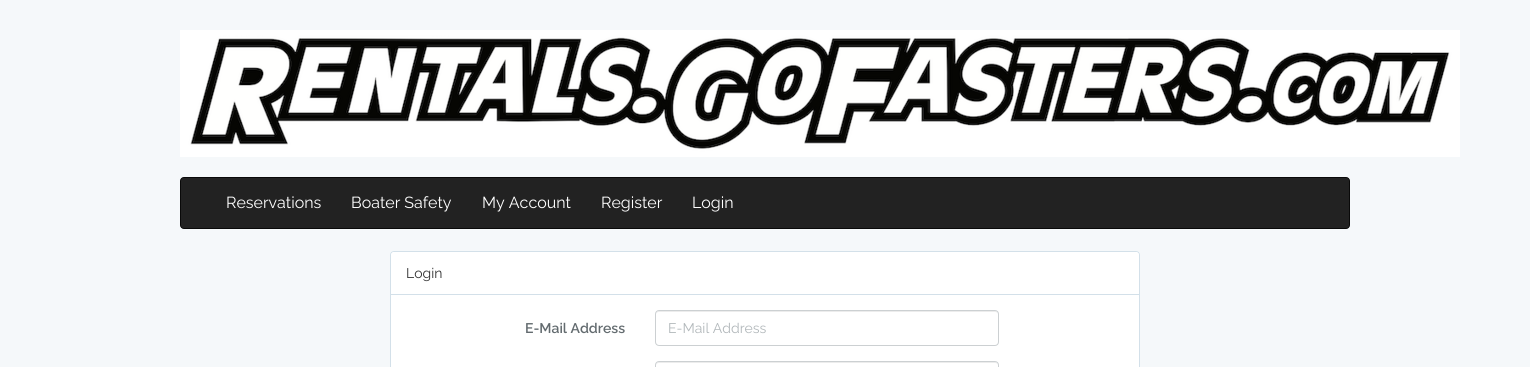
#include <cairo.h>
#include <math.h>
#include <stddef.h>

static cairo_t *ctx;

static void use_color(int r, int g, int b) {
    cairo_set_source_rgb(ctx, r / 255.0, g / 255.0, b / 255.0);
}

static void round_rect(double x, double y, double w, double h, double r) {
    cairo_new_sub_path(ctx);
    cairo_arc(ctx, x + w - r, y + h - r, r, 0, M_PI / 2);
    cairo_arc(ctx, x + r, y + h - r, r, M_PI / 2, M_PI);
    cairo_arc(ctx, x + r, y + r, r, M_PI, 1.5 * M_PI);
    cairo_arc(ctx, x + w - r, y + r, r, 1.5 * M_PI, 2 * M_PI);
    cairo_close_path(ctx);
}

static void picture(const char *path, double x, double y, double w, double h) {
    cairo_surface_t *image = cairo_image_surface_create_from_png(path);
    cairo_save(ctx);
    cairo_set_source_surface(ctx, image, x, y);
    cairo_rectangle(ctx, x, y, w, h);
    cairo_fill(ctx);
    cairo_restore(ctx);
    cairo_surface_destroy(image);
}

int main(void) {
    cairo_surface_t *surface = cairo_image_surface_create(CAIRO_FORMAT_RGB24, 1530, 367);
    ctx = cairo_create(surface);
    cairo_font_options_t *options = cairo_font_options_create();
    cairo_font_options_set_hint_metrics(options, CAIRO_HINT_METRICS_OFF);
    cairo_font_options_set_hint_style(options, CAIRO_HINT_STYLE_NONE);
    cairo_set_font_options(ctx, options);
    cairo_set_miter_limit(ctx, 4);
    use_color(245, 248, 250);
    cairo_paint(ctx);
    picture("img1.png", 180, 30, 1280, 127);
    use_color(34, 34, 34);
    round_rect(180.5, 177.5, 1169, 51, 3.5);
    cairo_fill_preserve(ctx);
    use_color(9, 9, 9);
    cairo_set_line_width(ctx, 1);
    cairo_stroke(ctx);
    cairo_select_font_face(ctx, "Raleway", CAIRO_FONT_SLANT_NORMAL, CAIRO_FONT_WEIGHT_NORMAL);
    cairo_set_font_size(ctx, 16);
    use_color(255, 255, 255);
    cairo_move_to(ctx, 226, 208);
    cairo_show_text(ctx, "Reservations");
    cairo_move_to(ctx, 351, 208);
    cairo_show_text(ctx, "Boater Safety");
    cairo_move_to(ctx, 482, 208);
    cairo_show_text(ctx, "My Account");
    cairo_move_to(ctx, 601, 208);
    cairo_show_text(ctx, "Register");
    cairo_move_to(ctx, 692, 208);
    cairo_show_text(ctx, "Login");
    round_rect(390.5, 251.5, 749, 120, 3.5);
    cairo_fill_preserve(ctx);
    use_color(211, 224, 233);
    cairo_stroke(ctx);
    use_color(255, 255, 255);
    cairo_new_path(ctx);
    cairo_move_to(ctx, 394, 252);
    cairo_line_to(ctx, 1136, 252);
    cairo_curve_to(ctx, 1137.5, 252, 1139, 253.5, 1139, 255);
    cairo_line_to(ctx, 1139, 295);
    cairo_line_to(ctx, 391, 295);
    cairo_line_to(ctx, 391, 255);
    cairo_curve_to(ctx, 391, 253.5, 392.5, 252, 394, 252);
    cairo_close_path(ctx);
    cairo_fill(ctx);
    use_color(211, 224, 233);
    cairo_rectangle(ctx, 391, 294, 748, 1);
    cairo_fill(ctx);
    cairo_set_font_size(ctx, 14);
    use_color(51, 51, 51);
    cairo_move_to(ctx, 406, 278);
    cairo_show_text(ctx, "Login");
    cairo_select_font_face(ctx, "Raleway SemiBold", CAIRO_FONT_SLANT_NORMAL, CAIRO_FONT_WEIGHT_NORMAL);
    use_color(99, 107, 111);
    cairo_move_to(ctx, 525, 333);
    cairo_show_text(ctx, "E-Mail Address");
    use_color(236, 236, 236);
    cairo_new_path(ctx);
    cairo_move_to(ctx, 659, 312);
    cairo_line_to(ctx, 995, 312);
    cairo_curve_to(ctx, 997, 312, 998, 313, 998, 315);
    cairo_curve_to(ctx, 998, 313, 997, 311, 995, 311);
    cairo_line_to(ctx, 659, 311);
    cairo_curve_to(ctx, 657, 311, 656, 313, 656, 315);
    cairo_curve_to(ctx, 656, 313, 657, 312, 659, 312);
    cairo_close_path(ctx);
    cairo_fill(ctx);
    round_rect(655.5, 310.5, 343, 35, 3.5);
    use_color(204, 208, 210);
    cairo_stroke(ctx);
    cairo_select_font_face(ctx, "Raleway", CAIRO_FONT_SLANT_NORMAL, CAIRO_FONT_WEIGHT_NORMAL);
    use_color(177, 183, 186);
    cairo_move_to(ctx, 668, 333);
    cairo_show_text(ctx, "E-Mail Address");
    use_color(236, 236, 236);
    cairo_new_path(ctx);
    cairo_move_to(ctx, 659, 363);
    cairo_line_to(ctx, 995, 363);
    cairo_curve_to(ctx, 997, 363, 998, 364, 998, 366);
    cairo_curve_to(ctx, 998, 364, 997, 362, 995, 362);
    cairo_line_to(ctx, 659, 362);
    cairo_curve_to(ctx, 657, 362, 656, 364, 656, 366);
    cairo_curve_to(ctx, 656, 364, 657, 363, 659, 363);
    cairo_close_path(ctx);
    cairo_fill(ctx);
    round_rect(655.5, 361.5, 343, 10, 3.5);
    use_color(204, 208, 210);
    cairo_stroke(ctx);
    cairo_surface_write_to_png(surface, "result.png");
    cairo_font_options_destroy(options);
    cairo_destroy(ctx);
    cairo_surface_destroy(surface);
    return 0;
}
